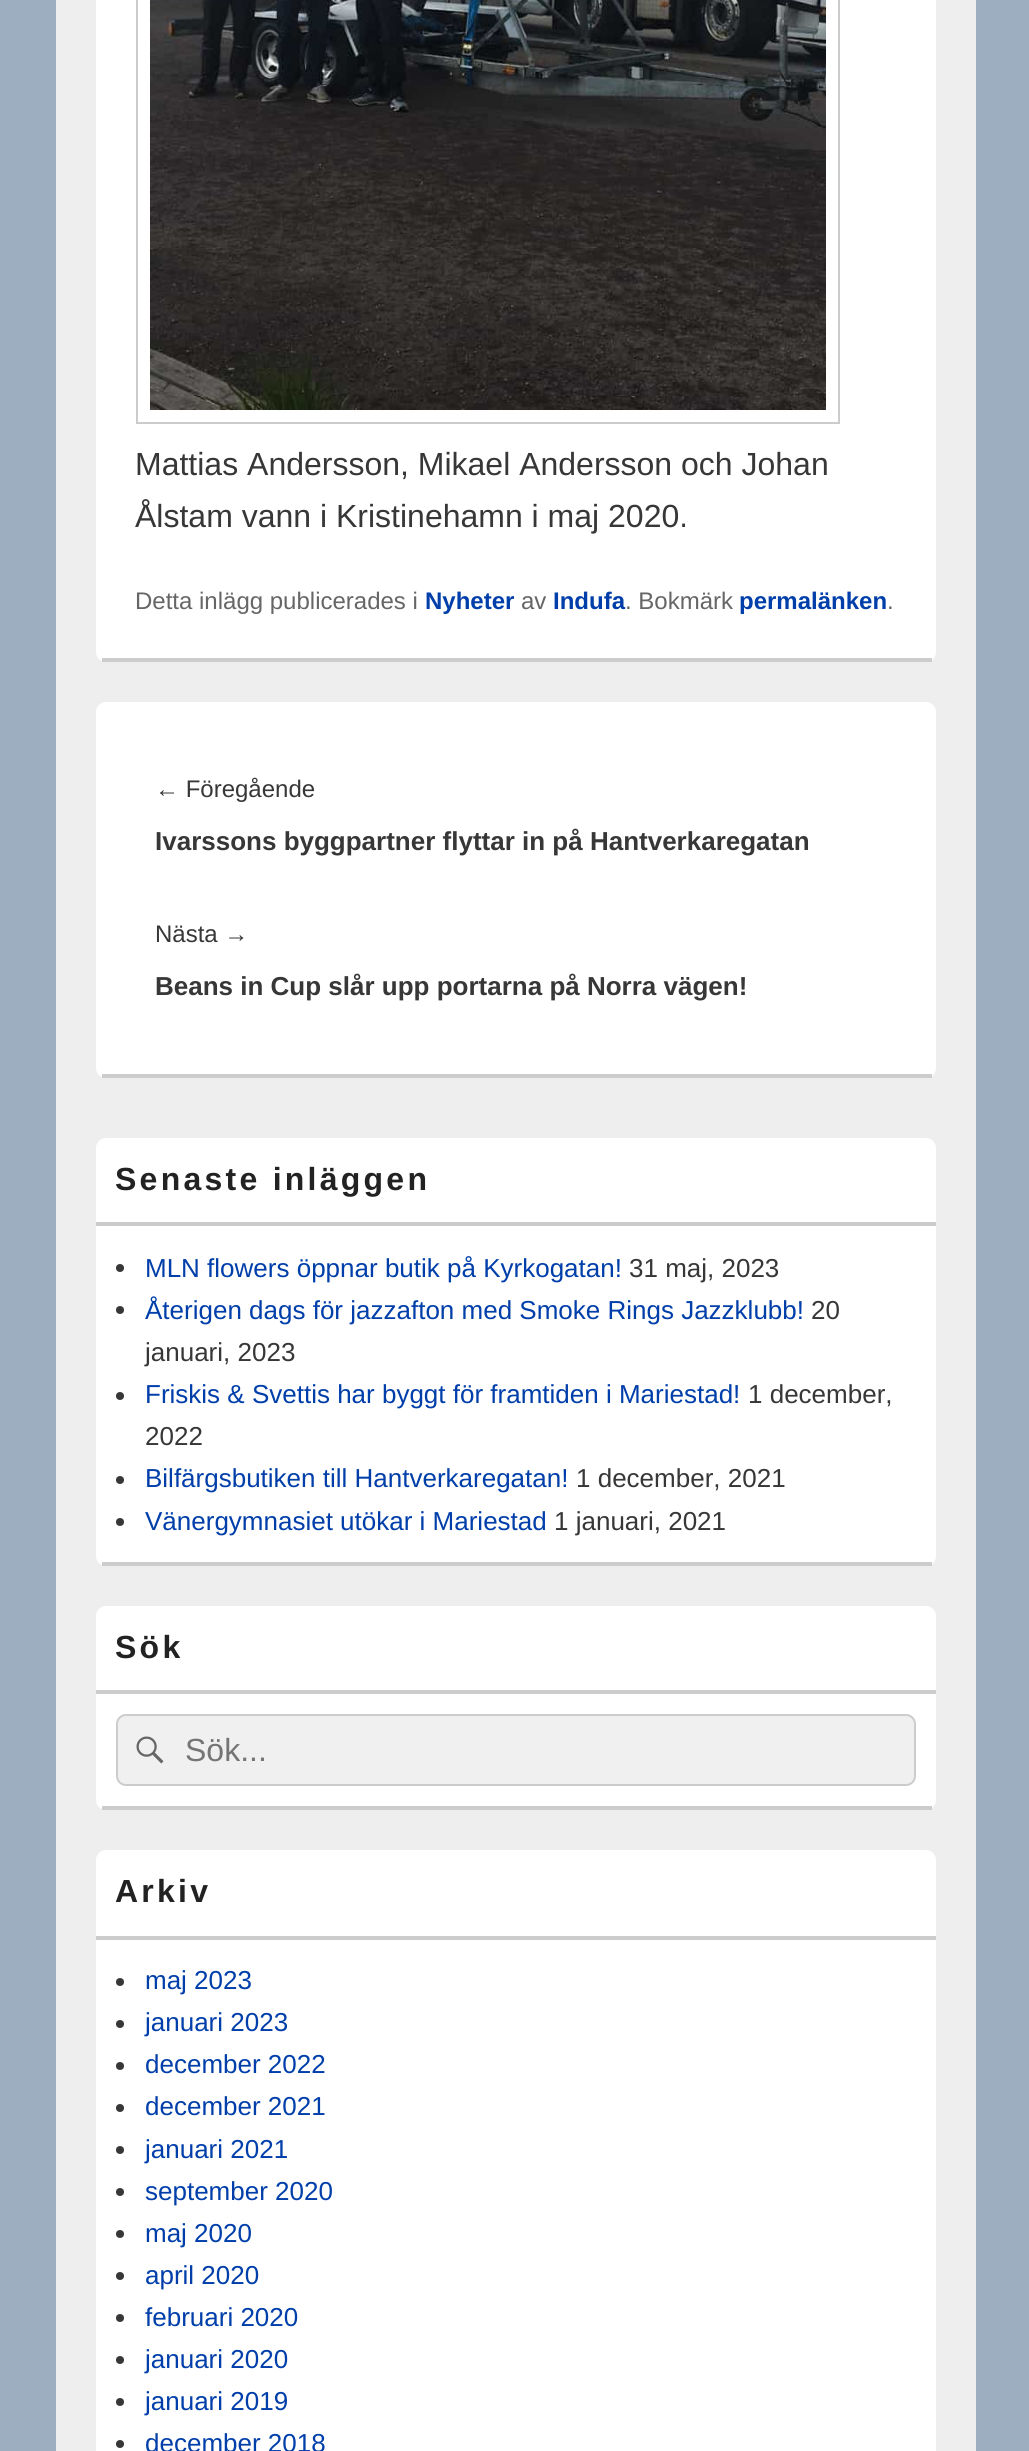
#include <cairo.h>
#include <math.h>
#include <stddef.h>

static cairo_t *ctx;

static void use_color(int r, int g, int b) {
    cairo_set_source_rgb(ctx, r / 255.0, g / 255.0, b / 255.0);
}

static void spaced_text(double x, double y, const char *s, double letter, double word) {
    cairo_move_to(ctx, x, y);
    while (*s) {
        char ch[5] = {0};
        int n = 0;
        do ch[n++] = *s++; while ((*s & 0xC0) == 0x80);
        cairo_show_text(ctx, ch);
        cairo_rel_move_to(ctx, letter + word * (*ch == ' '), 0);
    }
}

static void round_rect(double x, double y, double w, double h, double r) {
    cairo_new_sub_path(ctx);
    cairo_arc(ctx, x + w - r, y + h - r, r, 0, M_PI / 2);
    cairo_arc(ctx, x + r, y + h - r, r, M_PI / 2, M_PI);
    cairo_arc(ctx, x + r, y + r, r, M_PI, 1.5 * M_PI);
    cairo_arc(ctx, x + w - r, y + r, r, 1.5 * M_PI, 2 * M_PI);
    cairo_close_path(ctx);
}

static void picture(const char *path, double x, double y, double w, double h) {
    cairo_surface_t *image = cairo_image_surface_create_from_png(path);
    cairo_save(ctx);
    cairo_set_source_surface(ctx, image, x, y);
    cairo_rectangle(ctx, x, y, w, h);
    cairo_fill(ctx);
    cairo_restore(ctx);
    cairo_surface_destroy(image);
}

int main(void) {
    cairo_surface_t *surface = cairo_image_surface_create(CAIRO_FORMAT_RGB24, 1029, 2451);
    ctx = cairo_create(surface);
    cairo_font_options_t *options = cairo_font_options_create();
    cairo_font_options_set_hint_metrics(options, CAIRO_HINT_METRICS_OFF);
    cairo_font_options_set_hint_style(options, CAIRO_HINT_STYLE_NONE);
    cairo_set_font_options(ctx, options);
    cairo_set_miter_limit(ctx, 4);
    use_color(156, 174, 191);
    cairo_paint(ctx);
    use_color(238, 238, 238);
    cairo_rectangle(ctx, 56, 0, 920, 2451);
    cairo_fill(ctx);
    use_color(255, 255, 255);
    round_rect(96, -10, 840, 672, 10);
    cairo_fill(ctx);
    use_color(204, 204, 204);
    cairo_rectangle(ctx, 102, 658, 830, 4);
    cairo_fill(ctx);
    cairo_rectangle(ctx, 137, -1, 702, 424);
    cairo_stroke(ctx);
    picture("img1.png", 150, 0, 676, 410);
    cairo_select_font_face(ctx, "Liberation Sans", CAIRO_FONT_SLANT_NORMAL, CAIRO_FONT_WEIGHT_NORMAL);
    cairo_set_font_size(ctx, 32);
    use_color(55, 55, 55);
    cairo_move_to(ctx, 135, 475);
    cairo_show_text(ctx, "Mattias Andersson, Mikael Andersson och Johan");
    cairo_move_to(ctx, 135, 527);
    cairo_show_text(ctx, "Ålstam vann i Kristinehamn i maj 2020.");
    cairo_set_font_size(ctx, 24);
    use_color(102, 102, 102);
    cairo_move_to(ctx, 135, 609);
    cairo_show_text(ctx, "Detta inlägg publicerades i");
    cairo_select_font_face(ctx, "Liberation Sans", CAIRO_FONT_SLANT_NORMAL, CAIRO_FONT_WEIGHT_BOLD);
    use_color(0, 62, 170);
    cairo_move_to(ctx, 425, 609);
    cairo_show_text(ctx, "Nyheter");
    cairo_select_font_face(ctx, "Liberation Sans", CAIRO_FONT_SLANT_NORMAL, CAIRO_FONT_WEIGHT_NORMAL);
    use_color(102, 102, 102);
    cairo_move_to(ctx, 521, 609);
    cairo_show_text(ctx, "av");
    cairo_select_font_face(ctx, "Liberation Sans", CAIRO_FONT_SLANT_NORMAL, CAIRO_FONT_WEIGHT_BOLD);
    use_color(0, 62, 170);
    cairo_move_to(ctx, 553, 609);
    cairo_show_text(ctx, "Indufa");
    cairo_select_font_face(ctx, "Liberation Sans", CAIRO_FONT_SLANT_NORMAL, CAIRO_FONT_WEIGHT_NORMAL);
    use_color(102, 102, 102);
    cairo_move_to(ctx, 625, 609);
    cairo_show_text(ctx, ". Bokmärk");
    cairo_select_font_face(ctx, "Liberation Sans", CAIRO_FONT_SLANT_NORMAL, CAIRO_FONT_WEIGHT_BOLD);
    use_color(0, 62, 170);
    cairo_move_to(ctx, 739, 609);
    cairo_show_text(ctx, "permalänken");
    cairo_select_font_face(ctx, "Liberation Sans", CAIRO_FONT_SLANT_NORMAL, CAIRO_FONT_WEIGHT_NORMAL);
    use_color(102, 102, 102);
    cairo_move_to(ctx, 887, 609);
    cairo_show_text(ctx, ".");
    use_color(255, 255, 255);
    round_rect(96, 702, 840, 376, 10);
    cairo_fill(ctx);
    use_color(204, 204, 204);
    cairo_rectangle(ctx, 102, 1074, 830, 4);
    cairo_fill(ctx);
    use_color(55, 55, 55);
    cairo_move_to(ctx, 155, 797);
    cairo_show_text(ctx, "← Föregående");
    cairo_select_font_face(ctx, "Liberation Sans", CAIRO_FONT_SLANT_NORMAL, CAIRO_FONT_WEIGHT_BOLD);
    cairo_set_font_size(ctx, 26);
    cairo_move_to(ctx, 155, 850);
    cairo_show_text(ctx, "Ivarssons byggpartner flyttar in på Hantverkaregatan");
    cairo_select_font_face(ctx, "Liberation Sans", CAIRO_FONT_SLANT_NORMAL, CAIRO_FONT_WEIGHT_NORMAL);
    cairo_set_font_size(ctx, 24);
    cairo_move_to(ctx, 155, 942);
    cairo_show_text(ctx, "Nästa →");
    cairo_select_font_face(ctx, "Liberation Sans", CAIRO_FONT_SLANT_NORMAL, CAIRO_FONT_WEIGHT_BOLD);
    cairo_set_font_size(ctx, 26);
    cairo_move_to(ctx, 155, 995);
    cairo_show_text(ctx, "Beans in Cup slår upp portarna på Norra vägen!");
    use_color(255, 255, 255);
    round_rect(96, 1138, 840, 428, 10);
    cairo_fill(ctx);
    use_color(204, 204, 204);
    cairo_rectangle(ctx, 102, 1562, 830, 4);
    cairo_fill(ctx);
    cairo_rectangle(ctx, 96, 1222, 840, 4);
    cairo_fill(ctx);
    cairo_set_font_size(ctx, 32);
    use_color(34, 34, 34);
    spaced_text(115, 1190, "Senaste inläggen", 3.25, 0);
    use_color(55, 55, 55);
    cairo_new_path(ctx);
    cairo_arc(ctx, 120, 1268, 4, 0, 2 * M_PI);
    cairo_fill(ctx);
    cairo_select_font_face(ctx, "Liberation Sans", CAIRO_FONT_SLANT_NORMAL, CAIRO_FONT_WEIGHT_NORMAL);
    cairo_set_font_size(ctx, 26);
    use_color(0, 62, 170);
    cairo_move_to(ctx, 145, 1277);
    cairo_show_text(ctx, "MLN flowers öppnar butik på Kyrkogatan!");
    use_color(55, 55, 55);
    cairo_move_to(ctx, 629, 1277);
    cairo_show_text(ctx, "31 maj, 2023");
    cairo_new_path(ctx);
    cairo_arc(ctx, 120, 1310, 4, 0, 2 * M_PI);
    cairo_fill(ctx);
    use_color(0, 62, 170);
    cairo_move_to(ctx, 145, 1319);
    cairo_show_text(ctx, "Återigen dags för jazzafton med Smoke Rings Jazzklubb!");
    use_color(55, 55, 55);
    cairo_move_to(ctx, 811, 1319);
    cairo_show_text(ctx, "20");
    cairo_move_to(ctx, 145, 1361);
    cairo_show_text(ctx, "januari, 2023");
    cairo_new_path(ctx);
    cairo_arc(ctx, 120, 1396, 4, 0, 2 * M_PI);
    cairo_fill(ctx);
    use_color(0, 62, 170);
    cairo_move_to(ctx, 145, 1403);
    cairo_show_text(ctx, "Friskis & Svettis har byggt för framtiden i Mariestad!");
    use_color(55, 55, 55);
    cairo_move_to(ctx, 748, 1403);
    cairo_show_text(ctx, "1 december,");
    cairo_move_to(ctx, 145, 1445);
    cairo_show_text(ctx, "2022");
    cairo_new_path(ctx);
    cairo_arc(ctx, 120, 1480, 4, 0, 2 * M_PI);
    cairo_fill(ctx);
    use_color(0, 62, 170);
    cairo_move_to(ctx, 145, 1487);
    cairo_show_text(ctx, "Bilfärgsbutiken till Hantverkaregatan!");
    use_color(55, 55, 55);
    cairo_move_to(ctx, 576, 1487);
    cairo_show_text(ctx, "1 december, 2021");
    cairo_new_path(ctx);
    cairo_arc(ctx, 120, 1522, 4, 0, 2 * M_PI);
    cairo_fill(ctx);
    use_color(0, 62, 170);
    cairo_move_to(ctx, 145, 1530);
    cairo_show_text(ctx, "Vänergymnasiet utökar i Mariestad");
    use_color(55, 55, 55);
    cairo_move_to(ctx, 554, 1530);
    cairo_show_text(ctx, "1 januari, 2021");
    use_color(255, 255, 255);
    round_rect(96, 1606, 840, 204, 10);
    cairo_fill(ctx);
    use_color(204, 204, 204);
    cairo_rectangle(ctx, 102, 1806, 830, 4);
    cairo_fill(ctx);
    cairo_rectangle(ctx, 96, 1690, 840, 4);
    cairo_fill(ctx);
    cairo_select_font_face(ctx, "Liberation Sans", CAIRO_FONT_SLANT_NORMAL, CAIRO_FONT_WEIGHT_BOLD);
    cairo_set_font_size(ctx, 32);
    use_color(34, 34, 34);
    spaced_text(115, 1658, "Sök", 3.25, 0);
    use_color(240, 240, 240);
    round_rect(117, 1715, 798, 70, 9);
    cairo_fill_preserve(ctx);
    use_color(204, 204, 204);
    cairo_stroke(ctx);
    picture("img2.png", 136, 1736, 28, 28);
    cairo_select_font_face(ctx, "Liberation Sans", CAIRO_FONT_SLANT_NORMAL, CAIRO_FONT_WEIGHT_NORMAL);
    use_color(117, 117, 117);
    cairo_move_to(ctx, 185, 1761);
    cairo_show_text(ctx, "Sök...");
    use_color(255, 255, 255);
    round_rect(96, 1850, 840, 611, 10);
    cairo_fill(ctx);
    use_color(204, 204, 204);
    cairo_rectangle(ctx, 96, 1936, 840, 4);
    cairo_fill(ctx);
    cairo_select_font_face(ctx, "Liberation Sans", CAIRO_FONT_SLANT_NORMAL, CAIRO_FONT_WEIGHT_BOLD);
    use_color(34, 34, 34);
    spaced_text(115, 1902, "Arkiv", 3.25, 0);
    use_color(55, 55, 55);
    cairo_new_path(ctx);
    cairo_arc(ctx, 120, 1982, 4, 0, 2 * M_PI);
    cairo_fill(ctx);
    cairo_select_font_face(ctx, "Liberation Sans", CAIRO_FONT_SLANT_NORMAL, CAIRO_FONT_WEIGHT_NORMAL);
    cairo_set_font_size(ctx, 26);
    use_color(0, 62, 170);
    cairo_move_to(ctx, 145, 1989);
    cairo_show_text(ctx, "maj 2023");
    use_color(55, 55, 55);
    cairo_new_path(ctx);
    cairo_arc(ctx, 120, 2024, 4, 0, 2 * M_PI);
    cairo_fill(ctx);
    use_color(0, 62, 170);
    cairo_move_to(ctx, 145, 2031);
    cairo_show_text(ctx, "januari 2023");
    use_color(55, 55, 55);
    cairo_new_path(ctx);
    cairo_arc(ctx, 120, 2066, 4, 0, 2 * M_PI);
    cairo_fill(ctx);
    use_color(0, 62, 170);
    cairo_move_to(ctx, 145, 2073);
    cairo_show_text(ctx, "december 2022");
    use_color(55, 55, 55);
    cairo_new_path(ctx);
    cairo_arc(ctx, 120, 2108, 4, 0, 2 * M_PI);
    cairo_fill(ctx);
    use_color(0, 62, 170);
    cairo_move_to(ctx, 145, 2115);
    cairo_show_text(ctx, "december 2021");
    use_color(55, 55, 55);
    cairo_new_path(ctx);
    cairo_arc(ctx, 120, 2150, 4, 0, 2 * M_PI);
    cairo_fill(ctx);
    use_color(0, 62, 170);
    cairo_move_to(ctx, 145, 2158);
    cairo_show_text(ctx, "januari 2021");
    use_color(55, 55, 55);
    cairo_new_path(ctx);
    cairo_arc(ctx, 120, 2192, 4, 0, 2 * M_PI);
    cairo_fill(ctx);
    use_color(0, 62, 170);
    cairo_move_to(ctx, 145, 2200);
    cairo_show_text(ctx, "september 2020");
    use_color(55, 55, 55);
    cairo_new_path(ctx);
    cairo_arc(ctx, 120, 2234, 4, 0, 2 * M_PI);
    cairo_fill(ctx);
    use_color(0, 62, 170);
    cairo_move_to(ctx, 145, 2242);
    cairo_show_text(ctx, "maj 2020");
    use_color(55, 55, 55);
    cairo_new_path(ctx);
    cairo_arc(ctx, 120, 2276, 4, 0, 2 * M_PI);
    cairo_fill(ctx);
    use_color(0, 62, 170);
    cairo_move_to(ctx, 145, 2284);
    cairo_show_text(ctx, "april 2020");
    use_color(55, 55, 55);
    cairo_new_path(ctx);
    cairo_arc(ctx, 120, 2318, 4, 0, 2 * M_PI);
    cairo_fill(ctx);
    use_color(0, 62, 170);
    cairo_move_to(ctx, 145, 2326);
    cairo_show_text(ctx, "februari 2020");
    use_color(55, 55, 55);
    cairo_new_path(ctx);
    cairo_arc(ctx, 120, 2360, 4, 0, 2 * M_PI);
    cairo_fill(ctx);
    use_color(0, 62, 170);
    cairo_move_to(ctx, 145, 2368);
    cairo_show_text(ctx, "januari 2020");
    use_color(55, 55, 55);
    cairo_new_path(ctx);
    cairo_arc(ctx, 120, 2402, 4, 0, 2 * M_PI);
    cairo_fill(ctx);
    use_color(0, 62, 170);
    cairo_move_to(ctx, 145, 2410);
    cairo_show_text(ctx, "januari 2019");
    use_color(55, 55, 55);
    cairo_new_path(ctx);
    cairo_arc(ctx, 120, 2444, 4, 0, 2 * M_PI);
    cairo_fill(ctx);
    use_color(0, 62, 170);
    cairo_move_to(ctx, 145, 2452);
    cairo_show_text(ctx, "december 2018");
    cairo_surface_write_to_png(surface, "result.png");
    cairo_font_options_destroy(options);
    cairo_destroy(ctx);
    cairo_surface_destroy(surface);
    return 0;
}
